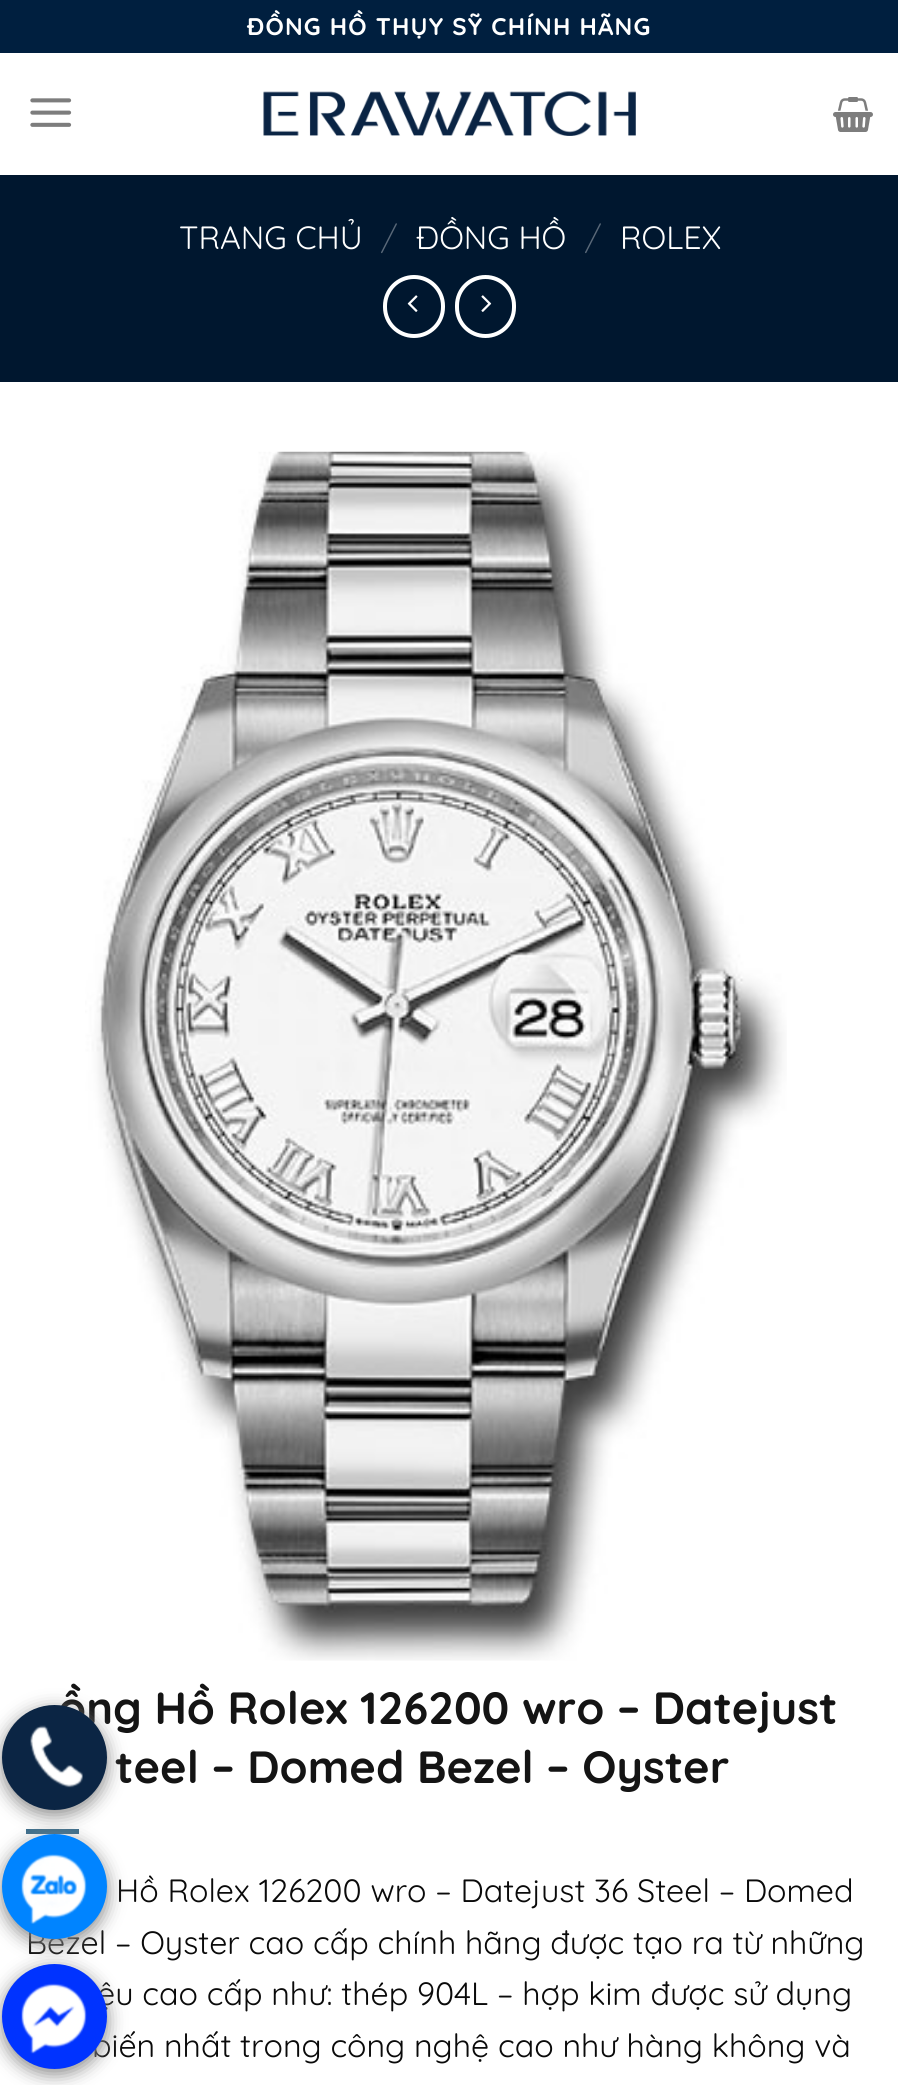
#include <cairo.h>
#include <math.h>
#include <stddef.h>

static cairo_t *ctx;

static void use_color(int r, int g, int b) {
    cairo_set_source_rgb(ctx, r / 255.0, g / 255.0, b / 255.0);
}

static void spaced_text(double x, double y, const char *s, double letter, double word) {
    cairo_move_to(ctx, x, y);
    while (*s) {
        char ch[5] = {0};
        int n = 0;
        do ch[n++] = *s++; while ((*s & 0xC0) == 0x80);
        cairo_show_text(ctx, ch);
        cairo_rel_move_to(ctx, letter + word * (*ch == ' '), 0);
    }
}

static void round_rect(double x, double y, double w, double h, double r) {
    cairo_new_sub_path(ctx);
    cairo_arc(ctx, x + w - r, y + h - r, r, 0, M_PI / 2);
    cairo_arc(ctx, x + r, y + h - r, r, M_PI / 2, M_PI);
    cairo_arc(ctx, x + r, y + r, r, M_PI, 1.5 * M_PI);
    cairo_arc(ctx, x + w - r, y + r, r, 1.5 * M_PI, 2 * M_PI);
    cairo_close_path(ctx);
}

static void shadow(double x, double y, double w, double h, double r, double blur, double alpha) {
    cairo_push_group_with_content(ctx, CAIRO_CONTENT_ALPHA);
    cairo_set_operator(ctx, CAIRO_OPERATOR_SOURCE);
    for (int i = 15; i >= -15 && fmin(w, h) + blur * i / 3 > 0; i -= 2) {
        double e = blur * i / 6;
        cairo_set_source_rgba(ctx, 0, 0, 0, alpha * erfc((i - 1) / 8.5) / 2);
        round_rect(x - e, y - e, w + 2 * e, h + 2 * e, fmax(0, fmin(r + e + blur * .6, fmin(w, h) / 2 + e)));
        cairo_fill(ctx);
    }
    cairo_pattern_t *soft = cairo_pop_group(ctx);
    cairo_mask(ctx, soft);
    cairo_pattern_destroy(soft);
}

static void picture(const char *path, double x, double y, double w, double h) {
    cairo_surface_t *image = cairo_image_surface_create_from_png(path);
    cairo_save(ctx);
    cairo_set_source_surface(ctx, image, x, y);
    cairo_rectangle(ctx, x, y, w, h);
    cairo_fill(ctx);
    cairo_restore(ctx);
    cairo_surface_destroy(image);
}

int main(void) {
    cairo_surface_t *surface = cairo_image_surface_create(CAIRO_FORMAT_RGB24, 898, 2085);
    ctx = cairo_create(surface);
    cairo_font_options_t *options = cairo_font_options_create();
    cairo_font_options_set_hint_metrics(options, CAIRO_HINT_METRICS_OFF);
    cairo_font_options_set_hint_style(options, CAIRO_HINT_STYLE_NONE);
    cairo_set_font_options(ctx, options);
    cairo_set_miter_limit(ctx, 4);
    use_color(255, 255, 255);
    cairo_paint(ctx);
    use_color(0, 31, 63);
    cairo_rectangle(ctx, 0, 0, 898, 53);
    cairo_fill(ctx);
    cairo_select_font_face(ctx, "Quicksand", CAIRO_FONT_SLANT_NORMAL, CAIRO_FONT_WEIGHT_BOLD);
    cairo_set_font_size(ctx, 24.1);
    use_color(255, 255, 255);
    spaced_text(247, 35, "ĐỒNG HỒ THỤY SỸ CHÍNH HÃNG", 1.2, 0);
    picture("img1.png", 30, 98, 42, 29);
    picture("img2.png", 263, 91, 373, 45);
    picture("img3.png", 833, 97, 40, 35);
    use_color(0, 23, 47);
    cairo_rectangle(ctx, 0, 175, 898, 207);
    cairo_fill(ctx);
    use_color(1, 22, 43);
    cairo_rectangle(ctx, 26, 175, 847, 2);
    cairo_fill(ctx);
    cairo_select_font_face(ctx, "Quicksand", CAIRO_FONT_SLANT_NORMAL, CAIRO_FONT_WEIGHT_NORMAL);
    cairo_set_font_size(ctx, 32.2);
    use_color(255, 255, 255);
    cairo_move_to(ctx, 179, 249);
    cairo_show_text(ctx, "TRANG CHỦ");
    cairo_select_font_face(ctx, "Quicksand Light", CAIRO_FONT_SLANT_NORMAL, CAIRO_FONT_WEIGHT_NORMAL);
    use_color(89, 104, 120);
    cairo_move_to(ctx, 381, 249);
    cairo_show_text(ctx, "/");
    cairo_select_font_face(ctx, "Quicksand", CAIRO_FONT_SLANT_NORMAL, CAIRO_FONT_WEIGHT_NORMAL);
    use_color(255, 255, 255);
    cairo_move_to(ctx, 416, 249);
    cairo_show_text(ctx, "ĐỒNG HỒ");
    cairo_select_font_face(ctx, "Quicksand Light", CAIRO_FONT_SLANT_NORMAL, CAIRO_FONT_WEIGHT_NORMAL);
    use_color(89, 104, 120);
    cairo_move_to(ctx, 585, 249);
    cairo_show_text(ctx, "/");
    cairo_select_font_face(ctx, "Quicksand", CAIRO_FONT_SLANT_NORMAL, CAIRO_FONT_WEIGHT_NORMAL);
    use_color(255, 255, 255);
    cairo_move_to(ctx, 620, 249);
    cairo_show_text(ctx, "ROLEX");
    round_rect(385, 277, 58, 59, 29);
    cairo_set_line_width(ctx, 4);
    cairo_stroke(ctx);
    picture("img4.png", 407, 295, 11, 17);
    round_rect(457, 277, 57, 59, 28.5);
    cairo_stroke(ctx);
    picture("img5.png", 481, 295, 11, 17);
    picture("img6.png", 85, 451, 702, 1210);
    cairo_select_font_face(ctx, "Quicksand", CAIRO_FONT_SLANT_NORMAL, CAIRO_FONT_WEIGHT_BOLD);
    cairo_set_font_size(ctx, 45.1);
    use_color(20, 20, 20);
    cairo_move_to(ctx, 58, 1724);
    cairo_show_text(ctx, "ồng Hồ Rolex 126200 wro – Datejust");
    cairo_move_to(ctx, 115, 1783);
    cairo_show_text(ctx, "teel – Domed Bezel – Oyster");
    use_color(58, 109, 140);
    cairo_rectangle(ctx, 26, 1829, 53, 5);
    cairo_fill(ctx);
    cairo_select_font_face(ctx, "Quicksand", CAIRO_FONT_SLANT_NORMAL, CAIRO_FONT_WEIGHT_NORMAL);
    cairo_set_font_size(ctx, 32.2);
    use_color(10, 10, 10);
    cairo_move_to(ctx, 116, 1902);
    cairo_show_text(ctx, "Hồ Rolex 126200 wro – Datejust 36 Steel – Domed");
    cairo_move_to(ctx, 26, 1954);
    cairo_show_text(ctx, "Bezel – Oyster cao cấp chính hãng được tạo ra từ những");
    cairo_move_to(ctx, 97, 2005);
    cairo_show_text(ctx, "ệu cao cấp như: thép 904L – hợp kim được sử dụng");
    cairo_move_to(ctx, 92, 2057);
    cairo_show_text(ctx, "biến nhất trong công nghệ cao như hàng không và");
    use_color(136, 136, 136);
    shadow(2, 1710, 105, 105, 52.5, 9, 1);
    use_color(11, 37, 68);
    cairo_arc(ctx, 54.5, 1757.5, 52.5, 0, 2 * M_PI);
    cairo_fill(ctx);
    picture("img7.png", 30, 1725, 53, 63);
    use_color(136, 136, 136);
    shadow(2, 1839, 105, 105, 52.5, 9, 1);
    use_color(0, 132, 255);
    cairo_arc(ctx, 54.5, 1886.5, 52.5, 0, 2 * M_PI);
    cairo_fill(ctx);
    picture("img8.png", 21, 1854, 66, 70);
    use_color(136, 136, 136);
    shadow(2, 1969, 105, 105, 52.5, 9, 1);
    use_color(0, 51, 255);
    cairo_arc(ctx, 54.5, 2016.5, 52.5, 0, 2 * M_PI);
    cairo_fill(ctx);
    picture("img9.png", 21, 1983, 66, 71);
    cairo_surface_write_to_png(surface, "result.png");
    cairo_font_options_destroy(options);
    cairo_destroy(ctx);
    cairo_surface_destroy(surface);
    return 0;
}
